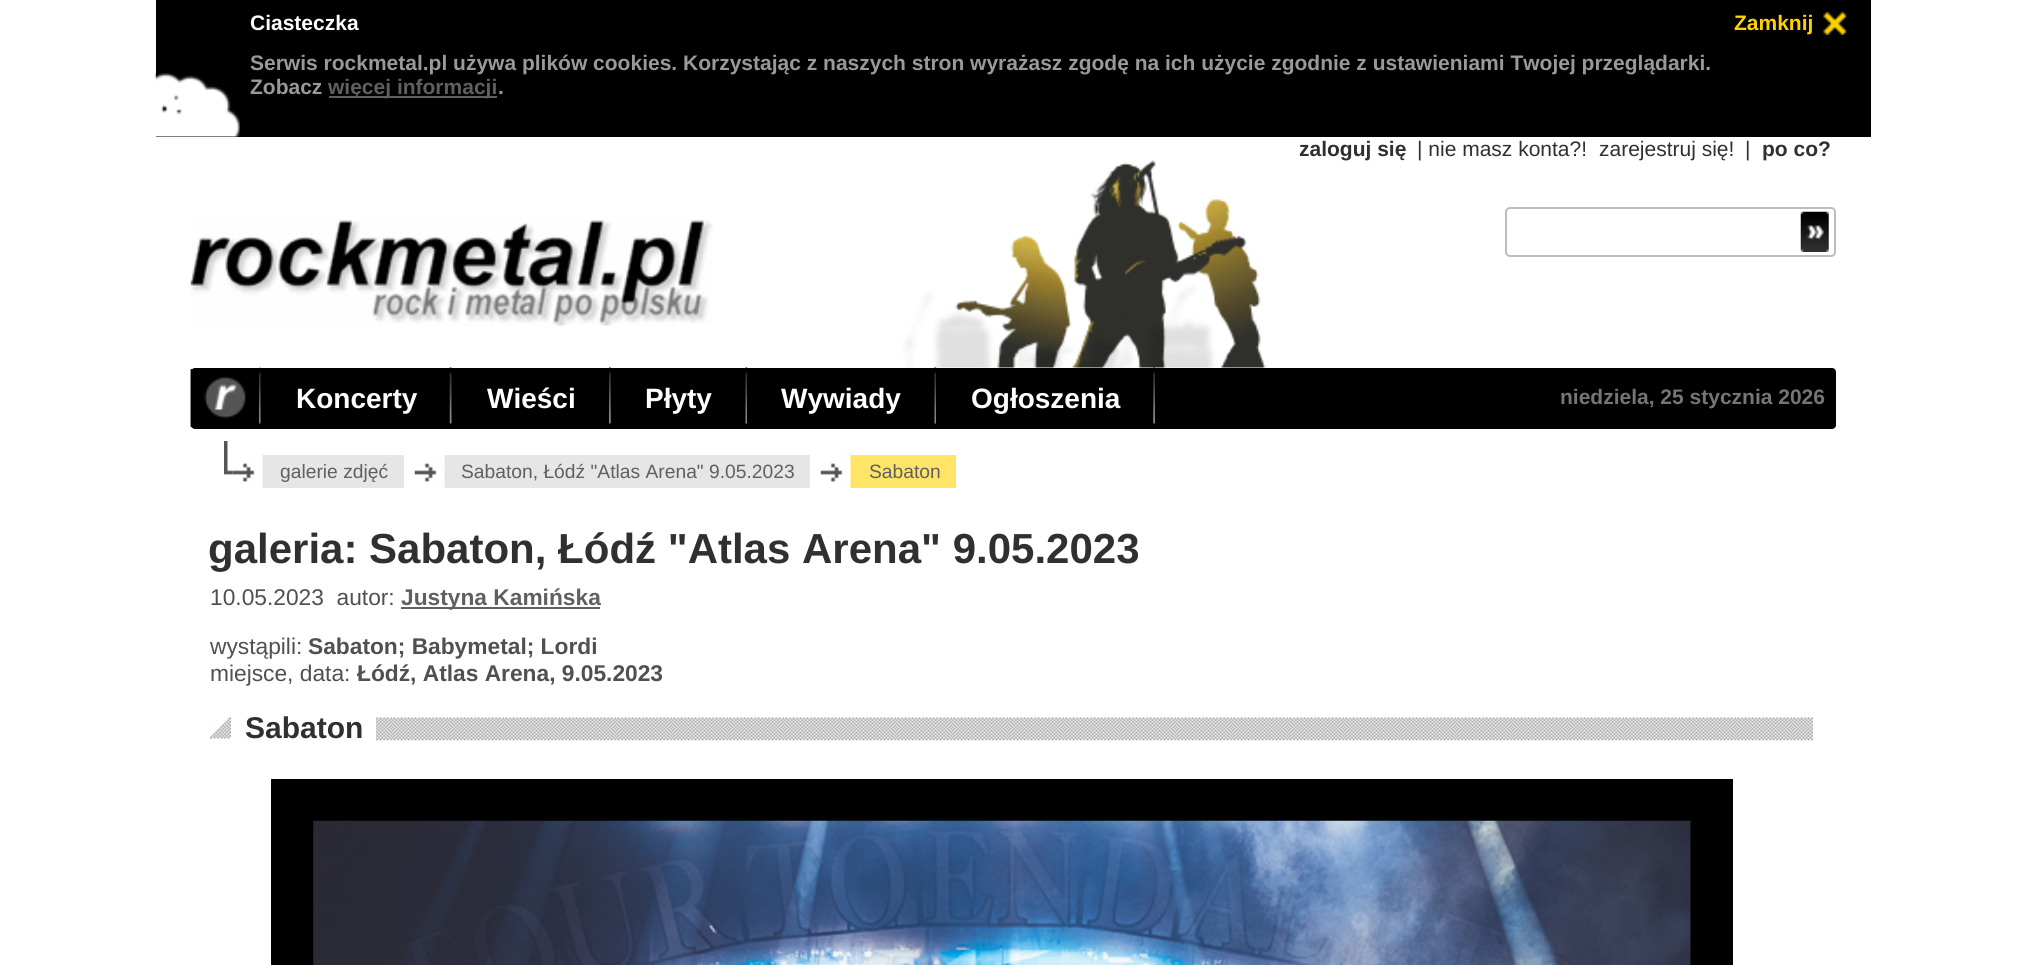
#include <cairo.h>
#include <math.h>
#include <stddef.h>

static cairo_t *ctx;

static void use_color(int r, int g, int b) {
    cairo_set_source_rgb(ctx, r / 255.0, g / 255.0, b / 255.0);
}

static void round_rect(double x, double y, double w, double h, double r) {
    cairo_new_sub_path(ctx);
    cairo_arc(ctx, x + w - r, y + h - r, r, 0, M_PI / 2);
    cairo_arc(ctx, x + r, y + h - r, r, M_PI / 2, M_PI);
    cairo_arc(ctx, x + r, y + r, r, M_PI, 1.5 * M_PI);
    cairo_arc(ctx, x + w - r, y + r, r, 1.5 * M_PI, 2 * M_PI);
    cairo_close_path(ctx);
}

static void picture(const char *path, double x, double y, double w, double h) {
    cairo_surface_t *image = cairo_image_surface_create_from_png(path);
    cairo_save(ctx);
    cairo_set_source_surface(ctx, image, x, y);
    cairo_rectangle(ctx, x, y, w, h);
    cairo_fill(ctx);
    cairo_restore(ctx);
    cairo_surface_destroy(image);
}

int main(void) {
    cairo_surface_t *surface = cairo_image_surface_create(CAIRO_FORMAT_RGB24, 2025, 965);
    ctx = cairo_create(surface);
    cairo_font_options_t *options = cairo_font_options_create();
    cairo_font_options_set_hint_metrics(options, CAIRO_HINT_METRICS_OFF);
    cairo_font_options_set_hint_style(options, CAIRO_HINT_STYLE_NONE);
    cairo_set_font_options(ctx, options);
    cairo_set_miter_limit(ctx, 4);
    use_color(255, 255, 255);
    cairo_paint(ctx);
    use_color(0, 0, 0);
    cairo_rectangle(ctx, 156, 0, 1715, 137);
    cairo_fill(ctx);
    picture("img1.png", 155, 73, 85, 64);
    cairo_select_font_face(ctx, "Liberation Sans", CAIRO_FONT_SLANT_NORMAL, CAIRO_FONT_WEIGHT_BOLD);
    cairo_set_font_size(ctx, 21);
    use_color(255, 255, 255);
    cairo_move_to(ctx, 250, 30);
    cairo_show_text(ctx, "Ciasteczka");
    use_color(255, 210, 0);
    cairo_move_to(ctx, 1734, 30);
    cairo_show_text(ctx, "Zamknij");
    picture("img2.png", 1823, 12, 24, 23);
    use_color(153, 153, 153);
    cairo_move_to(ctx, 250, 70);
    cairo_show_text(ctx, "Serwis rockmetal.pl używa plików cookies. Korzystając z naszych stron wyrażasz zgodę na ich użycie zgodnie z ustawieniami Twojej przeglądarki.");
    cairo_move_to(ctx, 250, 94);
    cairo_show_text(ctx, "Zobacz");
    use_color(96, 96, 96);
    cairo_rectangle(ctx, 329, 96, 168, 2);
    cairo_fill(ctx);
    cairo_move_to(ctx, 328, 94);
    cairo_show_text(ctx, "więcej informacji");
    use_color(153, 153, 153);
    cairo_move_to(ctx, 498, 94);
    cairo_show_text(ctx, ".");
    picture("img3.png", 903, 160, 363, 208);
    use_color(48, 48, 48);
    cairo_move_to(ctx, 1299, 156);
    cairo_show_text(ctx, "zaloguj się");
    cairo_select_font_face(ctx, "Liberation Sans", CAIRO_FONT_SLANT_NORMAL, CAIRO_FONT_WEIGHT_NORMAL);
    cairo_move_to(ctx, 1417, 156);
    cairo_show_text(ctx, "| nie masz konta?!");
    cairo_move_to(ctx, 1599, 156);
    cairo_show_text(ctx, "zarejestruj się!");
    cairo_move_to(ctx, 1745, 156);
    cairo_show_text(ctx, "|");
    cairo_select_font_face(ctx, "Liberation Sans", CAIRO_FONT_SLANT_NORMAL, CAIRO_FONT_WEIGHT_BOLD);
    cairo_move_to(ctx, 1762, 156);
    cairo_show_text(ctx, "po co?");
    round_rect(1506, 208, 329, 48, 4);
    use_color(189, 189, 189);
    cairo_stroke(ctx);
    picture("img4.png", 1800, 211, 29, 41);
    picture("img5.png", 190, 220, 523, 106);
    use_color(0, 0, 0);
    round_rect(191, 368, 1645, 61, 4);
    cairo_fill(ctx);
    picture("img6.png", 190, 367, 71, 60);
    picture("img7.png", 190, 369, 2, 58);
    picture("img8.png", 449, 367, 3, 57);
    cairo_set_font_size(ctx, 28);
    use_color(255, 255, 255);
    cairo_move_to(ctx, 296, 408);
    cairo_show_text(ctx, "Koncerty");
    picture("img9.png", 609, 367, 2, 57);
    cairo_move_to(ctx, 487, 408);
    cairo_show_text(ctx, "Wieści");
    picture("img10.png", 745, 367, 3, 57);
    cairo_move_to(ctx, 645, 408);
    cairo_show_text(ctx, "Płyty");
    use_color(0, 0, 0);
    cairo_rectangle(ctx, 747, 372, 1, 52);
    cairo_fill(ctx);
    picture("img11.png", 934, 367, 3, 57);
    use_color(255, 255, 255);
    cairo_move_to(ctx, 781, 408);
    cairo_show_text(ctx, "Wywiady");
    use_color(0, 0, 0);
    cairo_rectangle(ctx, 936, 372, 1, 52);
    cairo_fill(ctx);
    picture("img12.png", 1153, 367, 2, 57);
    use_color(255, 255, 255);
    cairo_move_to(ctx, 971, 408);
    cairo_show_text(ctx, "Ogłoszenia");
    cairo_set_font_size(ctx, 21);
    use_color(117, 117, 117);
    cairo_move_to(ctx, 1560, 404);
    cairo_show_text(ctx, "niedziela, 25 stycznia 2026");
    picture("img13.png", 224, 441, 9, 34);
    use_color(230, 230, 230);
    cairo_rectangle(ctx, 262, 455, 142, 33);
    cairo_fill(ctx);
    picture("img14.png", 232, 455, 31, 33);
    cairo_select_font_face(ctx, "Liberation Sans", CAIRO_FONT_SLANT_NORMAL, CAIRO_FONT_WEIGHT_NORMAL);
    cairo_set_font_size(ctx, 19.25);
    use_color(96, 96, 96);
    cairo_move_to(ctx, 280, 478);
    cairo_show_text(ctx, "galerie zdjęć");
    use_color(230, 230, 230);
    cairo_rectangle(ctx, 444, 455, 366, 33);
    cairo_fill(ctx);
    picture("img15.png", 414, 455, 31, 33);
    use_color(96, 96, 96);
    cairo_move_to(ctx, 461, 478);
    cairo_show_text(ctx, "Sabaton, Łódź \"Atlas Arena\" 9.05.2023");
    use_color(255, 228, 103);
    cairo_rectangle(ctx, 850, 455, 106, 33);
    cairo_fill(ctx);
    picture("img16.png", 820, 455, 31, 33);
    use_color(96, 96, 96);
    cairo_move_to(ctx, 869, 478);
    cairo_show_text(ctx, "Sabaton");
    cairo_select_font_face(ctx, "Liberation Sans", CAIRO_FONT_SLANT_NORMAL, CAIRO_FONT_WEIGHT_BOLD);
    cairo_set_font_size(ctx, 42);
    use_color(48, 48, 48);
    cairo_move_to(ctx, 208, 563);
    cairo_show_text(ctx, "galeria: Sabaton, Łódź \"Atlas Arena\" 9.05.2023");
    cairo_select_font_face(ctx, "Liberation Sans", CAIRO_FONT_SLANT_NORMAL, CAIRO_FONT_WEIGHT_NORMAL);
    cairo_set_font_size(ctx, 22.75);
    use_color(80, 80, 80);
    cairo_move_to(ctx, 210, 605);
    cairo_show_text(ctx, "10.05.2023  autor:");
    use_color(96, 96, 96);
    cairo_rectangle(ctx, 401, 607, 199, 2);
    cairo_fill(ctx);
    cairo_select_font_face(ctx, "Liberation Sans", CAIRO_FONT_SLANT_NORMAL, CAIRO_FONT_WEIGHT_BOLD);
    cairo_move_to(ctx, 401, 605);
    cairo_show_text(ctx, "Justyna Kamińska");
    cairo_select_font_face(ctx, "Liberation Sans", CAIRO_FONT_SLANT_NORMAL, CAIRO_FONT_WEIGHT_NORMAL);
    use_color(80, 80, 80);
    cairo_move_to(ctx, 210, 654);
    cairo_show_text(ctx, "wystąpili:");
    cairo_select_font_face(ctx, "Liberation Sans", CAIRO_FONT_SLANT_NORMAL, CAIRO_FONT_WEIGHT_BOLD);
    cairo_move_to(ctx, 308, 654);
    cairo_show_text(ctx, "Sabaton; Babymetal; Lordi");
    cairo_select_font_face(ctx, "Liberation Sans", CAIRO_FONT_SLANT_NORMAL, CAIRO_FONT_WEIGHT_NORMAL);
    cairo_move_to(ctx, 210, 681);
    cairo_show_text(ctx, "miejsce, data:");
    cairo_select_font_face(ctx, "Liberation Sans", CAIRO_FONT_SLANT_NORMAL, CAIRO_FONT_WEIGHT_BOLD);
    cairo_move_to(ctx, 357, 681);
    cairo_show_text(ctx, "Łódź, Atlas Arena, 9.05.2023");
    picture("img17.png", 376, 717, 1437, 24);
    picture("img18.png", 210, 717, 21, 22);
    cairo_set_font_size(ctx, 30);
    use_color(48, 48, 48);
    cairo_move_to(ctx, 245, 738);
    cairo_show_text(ctx, "Sabaton");
    use_color(0, 0, 0);
    cairo_rectangle(ctx, 271, 779, 1462, 186);
    cairo_fill(ctx);
    picture("img19.png", 313, 820, 1378, 145);
    cairo_surface_write_to_png(surface, "result.png");
    cairo_font_options_destroy(options);
    cairo_destroy(ctx);
    cairo_surface_destroy(surface);
    return 0;
}
